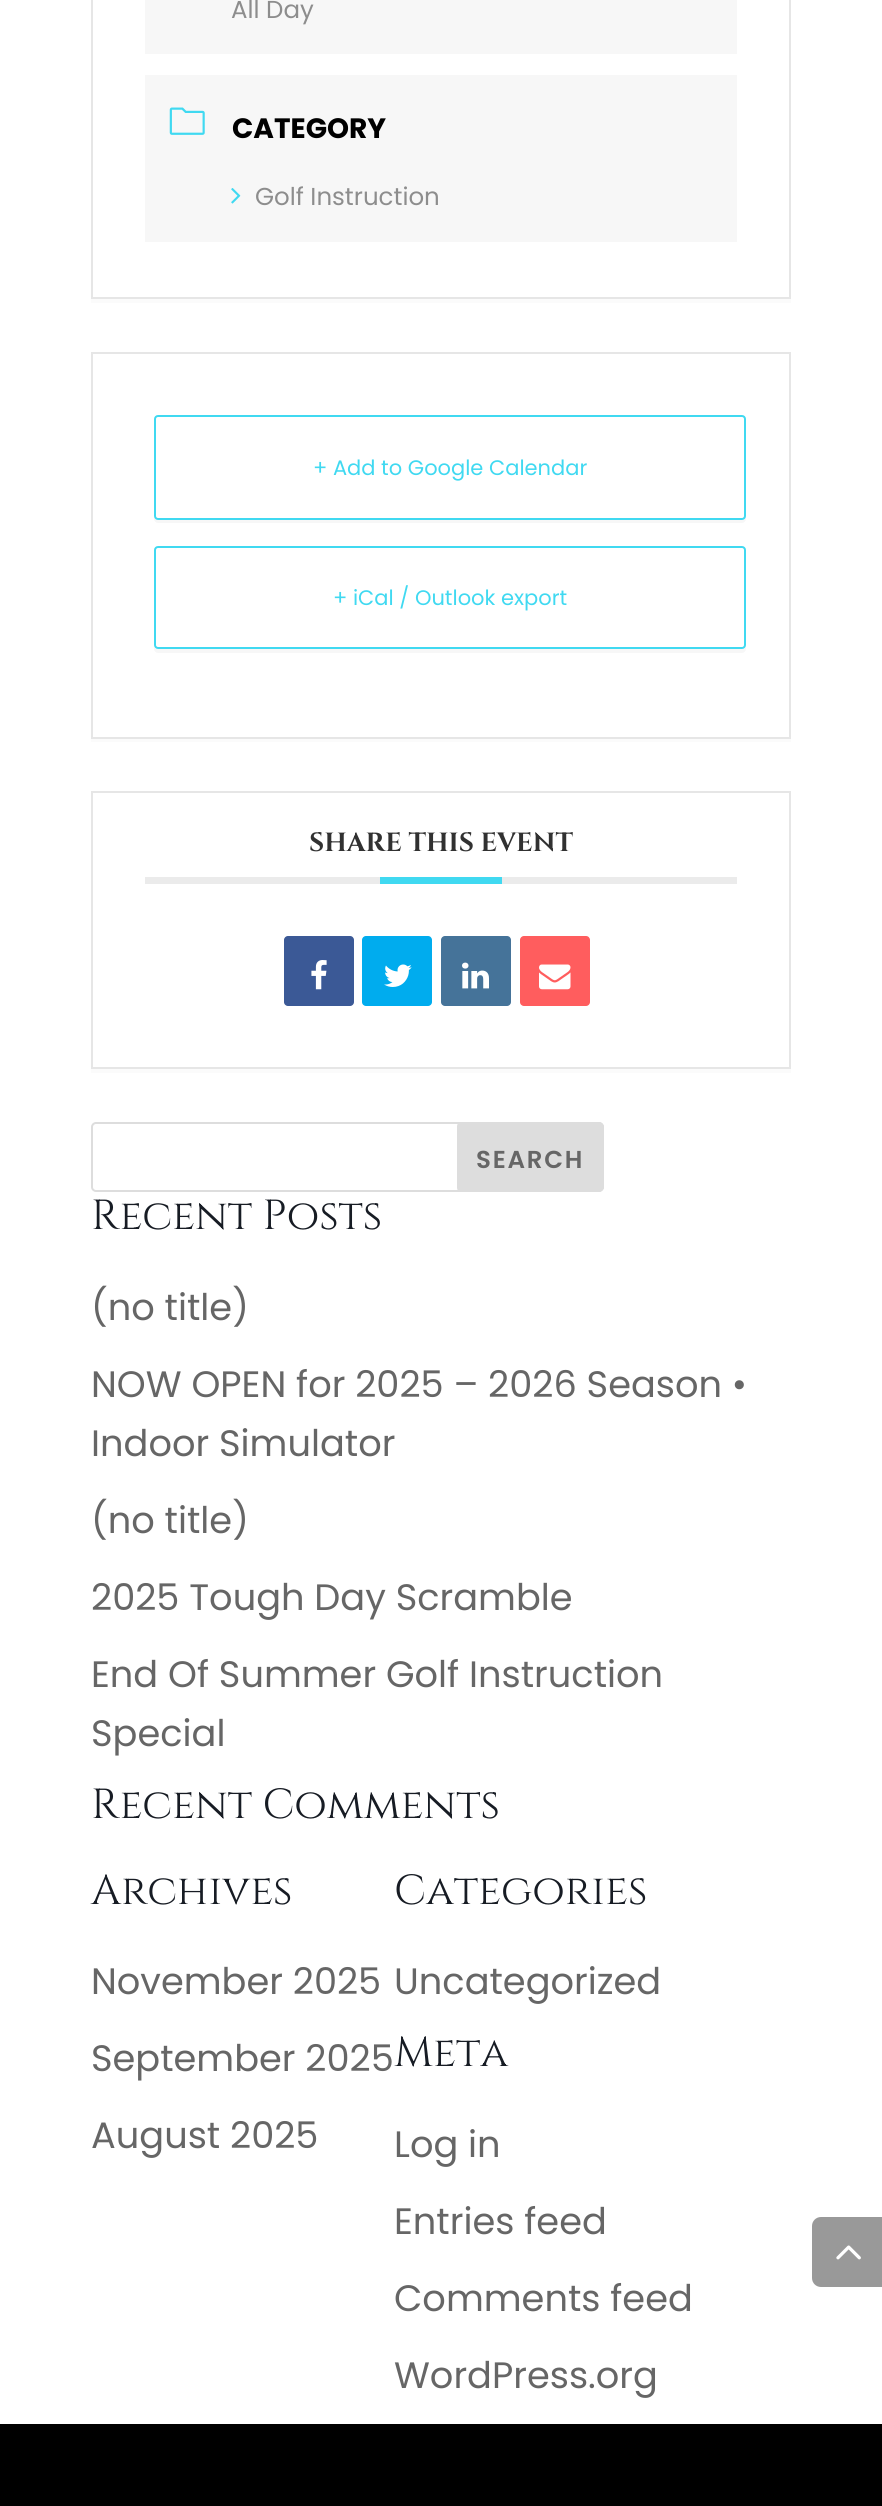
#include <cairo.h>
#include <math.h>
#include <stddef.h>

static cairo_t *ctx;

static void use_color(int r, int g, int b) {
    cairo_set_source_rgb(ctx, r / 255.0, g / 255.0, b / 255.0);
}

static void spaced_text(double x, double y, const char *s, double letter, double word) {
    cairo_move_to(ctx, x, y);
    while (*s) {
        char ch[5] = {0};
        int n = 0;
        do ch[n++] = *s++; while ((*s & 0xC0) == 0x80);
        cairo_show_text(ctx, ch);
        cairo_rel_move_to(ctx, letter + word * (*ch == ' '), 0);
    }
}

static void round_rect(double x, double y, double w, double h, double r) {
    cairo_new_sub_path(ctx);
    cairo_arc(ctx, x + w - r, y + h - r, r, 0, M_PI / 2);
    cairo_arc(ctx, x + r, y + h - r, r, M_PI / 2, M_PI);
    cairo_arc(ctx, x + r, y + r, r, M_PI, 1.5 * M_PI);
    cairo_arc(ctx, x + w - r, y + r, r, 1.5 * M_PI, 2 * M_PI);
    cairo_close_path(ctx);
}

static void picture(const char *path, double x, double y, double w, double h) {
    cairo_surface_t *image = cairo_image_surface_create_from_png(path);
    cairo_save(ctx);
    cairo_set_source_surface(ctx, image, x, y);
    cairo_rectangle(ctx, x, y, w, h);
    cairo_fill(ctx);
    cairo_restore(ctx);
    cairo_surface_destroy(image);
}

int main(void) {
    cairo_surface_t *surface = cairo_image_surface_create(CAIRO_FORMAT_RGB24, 882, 2506);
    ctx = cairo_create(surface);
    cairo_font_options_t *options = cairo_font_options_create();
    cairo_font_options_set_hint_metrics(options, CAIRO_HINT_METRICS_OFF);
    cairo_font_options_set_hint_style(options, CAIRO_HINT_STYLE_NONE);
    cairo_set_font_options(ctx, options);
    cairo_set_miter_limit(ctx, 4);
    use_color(255, 255, 255);
    cairo_paint(ctx);
    use_color(251, 251, 251);
    cairo_rectangle(ctx, 91, 299, 700, 4);
    cairo_fill(ctx);
    cairo_rectangle(ctx, 92, -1, 698, 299);
    use_color(230, 230, 230);
    cairo_stroke(ctx);
    use_color(247, 247, 247);
    cairo_rectangle(ctx, 145, 0, 592, 54);
    cairo_fill(ctx);
    cairo_select_font_face(ctx, "Poppins", CAIRO_FONT_SLANT_NORMAL, CAIRO_FONT_WEIGHT_NORMAL);
    cairo_set_font_size(ctx, 24.5);
    use_color(141, 141, 141);
    cairo_move_to(ctx, 231, 18);
    cairo_show_text(ctx, "All Day");
    use_color(247, 247, 247);
    cairo_rectangle(ctx, 145, 75, 592, 167);
    cairo_fill(ctx);
    picture("img1.png", 169, 107, 36, 28);
    cairo_select_font_face(ctx, "Poppins", CAIRO_FONT_SLANT_NORMAL, CAIRO_FONT_WEIGHT_BOLD);
    cairo_set_font_size(ctx, 28);
    use_color(0, 0, 0);
    cairo_move_to(ctx, 232, 138);
    cairo_show_text(ctx, "CATEGORY");
    picture("img2.png", 231, 188, 10, 16);
    cairo_select_font_face(ctx, "Poppins", CAIRO_FONT_SLANT_NORMAL, CAIRO_FONT_WEIGHT_NORMAL);
    cairo_set_font_size(ctx, 24.5);
    use_color(141, 141, 141);
    cairo_move_to(ctx, 255, 205);
    cairo_show_text(ctx, "Golf Instruction");
    use_color(251, 251, 251);
    cairo_rectangle(ctx, 91, 739, 700, 3);
    cairo_fill(ctx);
    cairo_rectangle(ctx, 92, 353, 698, 385);
    use_color(230, 230, 230);
    cairo_stroke(ctx);
    use_color(247, 247, 247);
    cairo_new_path(ctx);
    cairo_move_to(ctx, 154, 516);
    cairo_line_to(ctx, 154, 519);
    cairo_curve_to(ctx, 154, 521, 156, 523, 158, 523);
    cairo_line_to(ctx, 742, 523);
    cairo_curve_to(ctx, 744, 523, 746, 521, 746, 519);
    cairo_line_to(ctx, 746, 422);
    cairo_line_to(ctx, 746, 420);
    cairo_line_to(ctx, 746, 516);
    cairo_curve_to(ctx, 746, 518, 744, 520, 742, 520);
    cairo_line_to(ctx, 158, 520);
    cairo_curve_to(ctx, 156, 520, 154, 518, 154, 516);
    cairo_close_path(ctx);
    cairo_fill(ctx);
    round_rect(155, 416, 590, 103, 3);
    use_color(64, 217, 241);
    cairo_stroke(ctx);
    cairo_set_font_size(ctx, 21);
    cairo_move_to(ctx, 313, 475);
    cairo_show_text(ctx, "+ Add to Google Calendar");
    use_color(247, 247, 247);
    cairo_new_path(ctx);
    cairo_move_to(ctx, 154, 646);
    cairo_line_to(ctx, 154, 649);
    cairo_curve_to(ctx, 154, 651, 156, 653, 158, 653);
    cairo_line_to(ctx, 742, 653);
    cairo_curve_to(ctx, 744, 653, 746, 651, 746, 649);
    cairo_line_to(ctx, 746, 554);
    cairo_line_to(ctx, 746, 552);
    cairo_line_to(ctx, 746, 646);
    cairo_curve_to(ctx, 746, 648, 744, 649, 742, 649);
    cairo_line_to(ctx, 158, 649);
    cairo_curve_to(ctx, 156, 649, 154, 648, 154, 646);
    cairo_close_path(ctx);
    cairo_fill(ctx);
    round_rect(155, 547, 590, 101, 3);
    use_color(64, 217, 241);
    cairo_stroke(ctx);
    cairo_move_to(ctx, 333, 605);
    cairo_show_text(ctx, "+ iCal / Outlook export");
    use_color(251, 251, 251);
    cairo_rectangle(ctx, 91, 1069, 700, 4);
    cairo_fill(ctx);
    cairo_rectangle(ctx, 92, 792, 698, 276);
    use_color(230, 230, 230);
    cairo_stroke(ctx);
    use_color(235, 235, 235);
    cairo_rectangle(ctx, 145, 877, 592, 7);
    cairo_fill(ctx);
    cairo_select_font_face(ctx, "Cinzel", CAIRO_FONT_SLANT_NORMAL, CAIRO_FONT_WEIGHT_BOLD);
    cairo_set_font_size(ctx, 26.25);
    use_color(49, 49, 49);
    cairo_move_to(ctx, 309, 851);
    cairo_show_text(ctx, "SHARE THIS EVENT");
    use_color(64, 217, 241);
    cairo_rectangle(ctx, 380, 877, 122, 7);
    cairo_fill(ctx);
    use_color(59, 89, 150);
    round_rect(284, 936, 70, 70, 4);
    cairo_fill(ctx);
    picture("img3.png", 311, 960, 16, 30);
    use_color(0, 172, 238);
    round_rect(362, 936, 70, 70, 4);
    cairo_fill(ctx);
    picture("img4.png", 384, 964, 28, 23);
    use_color(69, 115, 153);
    round_rect(441, 936, 70, 70, 4);
    cairo_fill(ctx);
    picture("img5.png", 462, 962, 27, 27);
    use_color(255, 93, 94);
    round_rect(520, 936, 70, 70, 4);
    cairo_fill(ctx);
    picture("img6.png", 539, 964, 32, 26);
    round_rect(92, 1123, 511, 68, 4);
    use_color(221, 221, 221);
    cairo_stroke(ctx);
    cairo_new_path(ctx);
    cairo_move_to(ctx, 461, 1123);
    cairo_line_to(ctx, 599, 1123);
    cairo_curve_to(ctx, 601, 1123, 603, 1125, 603, 1127);
    cairo_line_to(ctx, 603, 1187);
    cairo_curve_to(ctx, 603, 1189, 601, 1191, 599, 1191);
    cairo_line_to(ctx, 461, 1191);
    cairo_curve_to(ctx, 459.5, 1191, 458, 1189.5, 458, 1188);
    cairo_line_to(ctx, 458, 1126);
    cairo_curve_to(ctx, 458, 1124.5, 459.5, 1123, 461, 1123);
    cairo_close_path(ctx);
    cairo_fill_preserve(ctx);
    cairo_stroke(ctx);
    cairo_select_font_face(ctx, "Poppins SemiBold", CAIRO_FONT_SLANT_NORMAL, CAIRO_FONT_WEIGHT_NORMAL);
    cairo_set_font_size(ctx, 24.5);
    use_color(102, 102, 102);
    spaced_text(476, 1168, "SEARCH", 1.75, 0);
    cairo_select_font_face(ctx, "Cinzel", CAIRO_FONT_SLANT_NORMAL, CAIRO_FONT_WEIGHT_NORMAL);
    cairo_set_font_size(ctx, 42);
    use_color(23, 28, 36);
    cairo_move_to(ctx, 91, 1229);
    cairo_show_text(ctx, "Recent Posts");
    cairo_select_font_face(ctx, "Poppins", CAIRO_FONT_SLANT_NORMAL, CAIRO_FONT_WEIGHT_NORMAL);
    cairo_set_font_size(ctx, 36.75);
    use_color(102, 102, 102);
    cairo_move_to(ctx, 91, 1320);
    cairo_show_text(ctx, "(no title)");
    cairo_move_to(ctx, 91, 1397);
    cairo_show_text(ctx, "NOW OPEN for 2025 – 2026 Season •");
    cairo_move_to(ctx, 91, 1456);
    cairo_show_text(ctx, "Indoor Simulator");
    cairo_move_to(ctx, 91, 1533);
    cairo_show_text(ctx, "(no title)");
    cairo_move_to(ctx, 91, 1610);
    cairo_show_text(ctx, "2025 Tough Day Scramble");
    cairo_move_to(ctx, 91, 1687);
    cairo_show_text(ctx, "End Of Summer Golf Instruction");
    cairo_move_to(ctx, 91, 1746);
    cairo_show_text(ctx, "Special");
    cairo_select_font_face(ctx, "Cinzel", CAIRO_FONT_SLANT_NORMAL, CAIRO_FONT_WEIGHT_NORMAL);
    cairo_set_font_size(ctx, 42);
    use_color(23, 28, 36);
    cairo_move_to(ctx, 91, 1818);
    cairo_show_text(ctx, "Recent Comments");
    cairo_move_to(ctx, 91, 1904);
    cairo_show_text(ctx, "Archives");
    cairo_select_font_face(ctx, "Poppins", CAIRO_FONT_SLANT_NORMAL, CAIRO_FONT_WEIGHT_NORMAL);
    cairo_set_font_size(ctx, 36.75);
    use_color(102, 102, 102);
    cairo_move_to(ctx, 91, 1994);
    cairo_show_text(ctx, "November 2025");
    cairo_move_to(ctx, 91, 2071);
    cairo_show_text(ctx, "September 2025");
    cairo_move_to(ctx, 91, 2148);
    cairo_show_text(ctx, "August 2025");
    cairo_select_font_face(ctx, "Cinzel", CAIRO_FONT_SLANT_NORMAL, CAIRO_FONT_WEIGHT_NORMAL);
    cairo_set_font_size(ctx, 42);
    use_color(23, 28, 36);
    cairo_move_to(ctx, 394, 1904);
    cairo_show_text(ctx, "Categories");
    cairo_select_font_face(ctx, "Poppins", CAIRO_FONT_SLANT_NORMAL, CAIRO_FONT_WEIGHT_NORMAL);
    cairo_set_font_size(ctx, 36.75);
    use_color(102, 102, 102);
    cairo_move_to(ctx, 394, 1994);
    cairo_show_text(ctx, "Uncategorized");
    cairo_select_font_face(ctx, "Cinzel", CAIRO_FONT_SLANT_NORMAL, CAIRO_FONT_WEIGHT_NORMAL);
    cairo_set_font_size(ctx, 42);
    use_color(23, 28, 36);
    cairo_move_to(ctx, 394, 2066);
    cairo_show_text(ctx, "Meta");
    cairo_select_font_face(ctx, "Poppins", CAIRO_FONT_SLANT_NORMAL, CAIRO_FONT_WEIGHT_NORMAL);
    cairo_set_font_size(ctx, 36.75);
    use_color(102, 102, 102);
    cairo_move_to(ctx, 394, 2157);
    cairo_show_text(ctx, "Log in");
    cairo_move_to(ctx, 394, 2234);
    cairo_show_text(ctx, "Entries feed");
    cairo_move_to(ctx, 394, 2311);
    cairo_show_text(ctx, "Comments feed");
    cairo_move_to(ctx, 394, 2388);
    cairo_show_text(ctx, "WordPress.org");
    use_color(0, 0, 0);
    cairo_rectangle(ctx, 0, 2424, 882, 82);
    cairo_fill(ctx);
    use_color(153, 153, 153);
    cairo_new_path(ctx);
    cairo_move_to(ctx, 821, 2217);
    cairo_line_to(ctx, 882, 2217);
    cairo_line_to(ctx, 882, 2287);
    cairo_line_to(ctx, 821, 2287);
    cairo_curve_to(ctx, 816, 2287, 812, 2283, 812, 2278);
    cairo_line_to(ctx, 812, 2226);
    cairo_curve_to(ctx, 812, 2221, 816, 2217, 821, 2217);
    cairo_close_path(ctx);
    cairo_fill(ctx);
    picture("img7.png", 836, 2245, 25, 15);
    cairo_surface_write_to_png(surface, "result.png");
    cairo_font_options_destroy(options);
    cairo_destroy(ctx);
    cairo_surface_destroy(surface);
    return 0;
}
